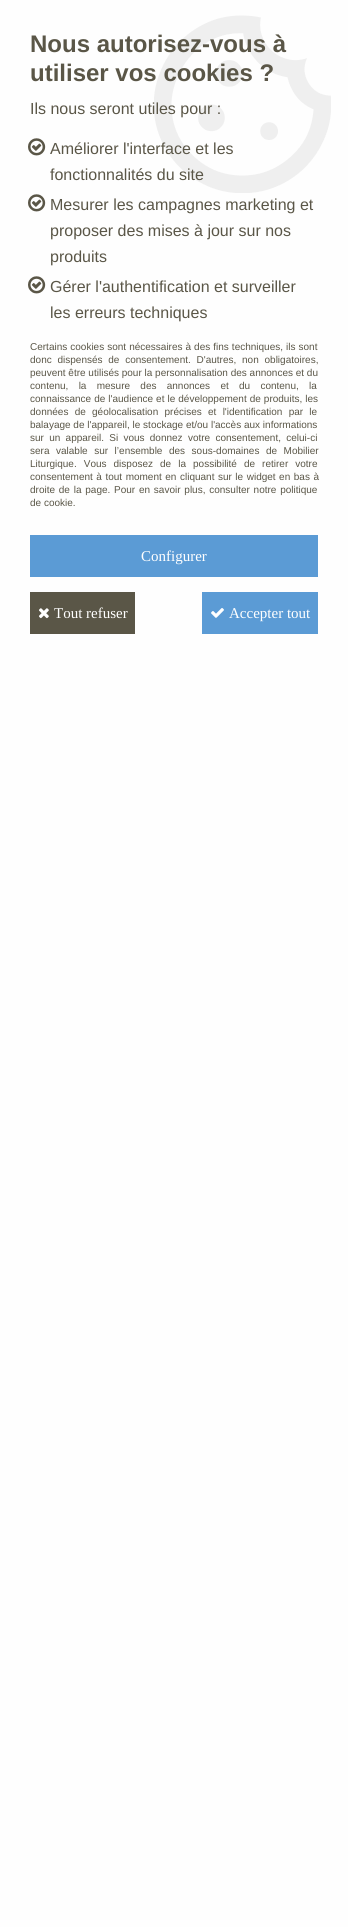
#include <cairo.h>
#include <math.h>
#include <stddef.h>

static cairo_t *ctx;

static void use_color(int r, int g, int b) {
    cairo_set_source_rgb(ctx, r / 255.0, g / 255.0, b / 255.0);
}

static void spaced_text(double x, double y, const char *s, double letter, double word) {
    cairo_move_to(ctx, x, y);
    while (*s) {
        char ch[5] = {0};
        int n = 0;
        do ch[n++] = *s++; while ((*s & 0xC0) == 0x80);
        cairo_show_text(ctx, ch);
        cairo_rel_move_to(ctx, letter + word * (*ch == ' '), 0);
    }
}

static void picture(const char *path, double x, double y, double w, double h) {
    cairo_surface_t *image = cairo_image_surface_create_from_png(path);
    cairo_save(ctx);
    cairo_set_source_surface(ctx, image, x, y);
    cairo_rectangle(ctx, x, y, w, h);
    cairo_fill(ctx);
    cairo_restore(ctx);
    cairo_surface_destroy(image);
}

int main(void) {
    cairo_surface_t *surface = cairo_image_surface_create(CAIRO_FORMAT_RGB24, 348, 1927);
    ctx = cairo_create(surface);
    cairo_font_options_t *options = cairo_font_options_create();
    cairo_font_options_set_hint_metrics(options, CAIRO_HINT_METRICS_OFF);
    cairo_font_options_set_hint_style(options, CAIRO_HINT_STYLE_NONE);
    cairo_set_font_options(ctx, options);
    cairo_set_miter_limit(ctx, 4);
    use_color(254, 254, 254);
    cairo_paint(ctx);
    picture("img1.png", 154, 15, 177, 178);
    cairo_select_font_face(ctx, "Liberation Sans", CAIRO_FONT_SLANT_NORMAL, CAIRO_FONT_WEIGHT_BOLD);
    cairo_set_font_size(ctx, 24);
    use_color(90, 86, 71);
    cairo_move_to(ctx, 30, 52);
    cairo_show_text(ctx, "Nous autorisez-vous à");
    cairo_move_to(ctx, 30, 81);
    cairo_show_text(ctx, "utiliser vos cookies ?");
    cairo_select_font_face(ctx, "Liberation Sans", CAIRO_FONT_SLANT_NORMAL, CAIRO_FONT_WEIGHT_NORMAL);
    cairo_set_font_size(ctx, 16);
    cairo_move_to(ctx, 30, 114);
    cairo_show_text(ctx, "Ils nous seront utiles pour :");
    picture("img2.png", 28, 138, 18, 18);
    cairo_move_to(ctx, 50, 154);
    cairo_show_text(ctx, "Améliorer l'interface et les");
    cairo_move_to(ctx, 50, 180);
    cairo_show_text(ctx, "fonctionnalités du site");
    picture("img2.png", 28, 194, 18, 18);
    cairo_move_to(ctx, 50, 210);
    cairo_show_text(ctx, "Mesurer les campagnes marketing et");
    cairo_move_to(ctx, 50, 236);
    cairo_show_text(ctx, "proposer des mises à jour sur nos");
    cairo_move_to(ctx, 50, 262);
    cairo_show_text(ctx, "produits");
    picture("img2.png", 28, 276, 18, 18);
    cairo_move_to(ctx, 50, 292);
    cairo_show_text(ctx, "Gérer l'authentification et surveiller");
    cairo_move_to(ctx, 50, 318);
    cairo_show_text(ctx, "les erreurs techniques");
    cairo_set_font_size(ctx, 10);
    spaced_text(30, 350, "Certains cookies sont nécessaires à des fins techniques, ils sont", 0, 0.25);
    spaced_text(30, 363, "donc dispensés de consentement. D'autres, non obligatoires,", 0, 3);
    cairo_move_to(ctx, 30, 376);
    cairo_show_text(ctx, "peuvent être utilisés pour la personnalisation des annonces et du");
    spaced_text(30, 389, "contenu, la mesure des annonces et du contenu, la", 0, 7.5);
    spaced_text(30, 402, "connaissance de l'audience et le développement de produits, les", 0, 0.25);
    spaced_text(30, 415, "données de géolocalisation précises et l'identification par le", 0, 3.5);
    cairo_move_to(ctx, 30, 428);
    cairo_show_text(ctx, "balayage de l'appareil, le stockage et/ou l'accès aux informations");
    spaced_text(30, 441, "sur un appareil. Si vous donnez votre consentement, celui-ci", 0, 2.5);
    spaced_text(30, 454, "sera valable sur l’ensemble des sous-domaines de Mobilier", 0, 3.75);
    spaced_text(30, 467, "Liturgique. Vous disposez de la possibilité de retirer votre", 0, 4.25);
    spaced_text(30, 480, "consentement à tout moment en cliquant sur le widget en bas à", 0, 0.75);
    spaced_text(30, 493, "droite de la page. Pour en savoir plus, consulter notre politique", 0, 1);
    cairo_move_to(ctx, 30, 506);
    cairo_show_text(ctx, "de cookie.");
    use_color(91, 155, 213);
    cairo_rectangle(ctx, 30, 535, 288, 42);
    cairo_fill(ctx);
    cairo_select_font_face(ctx, "Liberation Serif", CAIRO_FONT_SLANT_NORMAL, CAIRO_FONT_WEIGHT_NORMAL);
    cairo_set_font_size(ctx, 15);
    use_color(255, 255, 255);
    cairo_move_to(ctx, 141, 561);
    cairo_show_text(ctx, "Configurer");
    use_color(90, 86, 71);
    cairo_rectangle(ctx, 30, 592, 105, 42);
    cairo_fill(ctx);
    picture("img3.png", 39, 608, 10, 11);
    use_color(255, 255, 255);
    cairo_move_to(ctx, 54, 618);
    cairo_show_text(ctx, "Tout refuser");
    use_color(91, 155, 213);
    cairo_rectangle(ctx, 202, 592, 116, 42);
    cairo_fill(ctx);
    picture("img4.png", 211, 608, 13, 10);
    use_color(255, 255, 255);
    cairo_move_to(ctx, 229, 618);
    cairo_show_text(ctx, "Accepter tout");
    cairo_surface_write_to_png(surface, "result.png");
    cairo_font_options_destroy(options);
    cairo_destroy(ctx);
    cairo_surface_destroy(surface);
    return 0;
}
